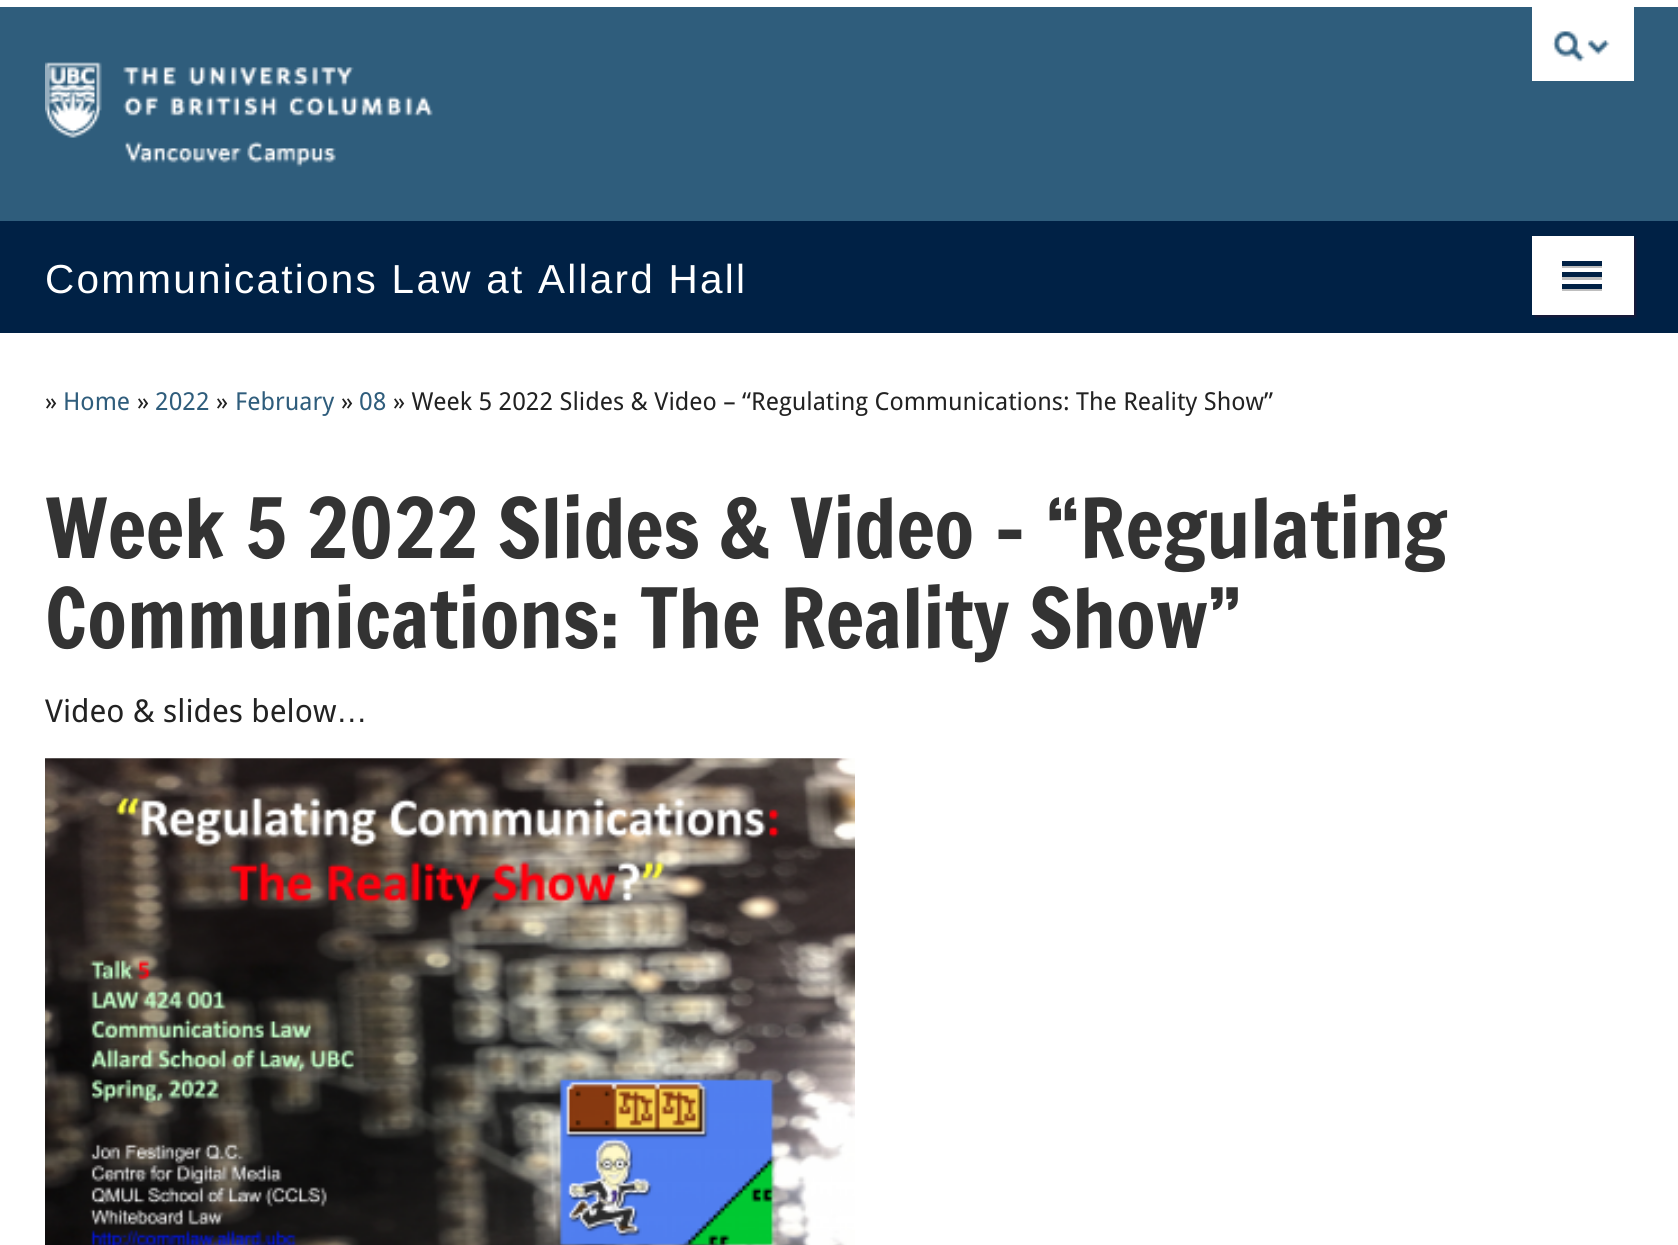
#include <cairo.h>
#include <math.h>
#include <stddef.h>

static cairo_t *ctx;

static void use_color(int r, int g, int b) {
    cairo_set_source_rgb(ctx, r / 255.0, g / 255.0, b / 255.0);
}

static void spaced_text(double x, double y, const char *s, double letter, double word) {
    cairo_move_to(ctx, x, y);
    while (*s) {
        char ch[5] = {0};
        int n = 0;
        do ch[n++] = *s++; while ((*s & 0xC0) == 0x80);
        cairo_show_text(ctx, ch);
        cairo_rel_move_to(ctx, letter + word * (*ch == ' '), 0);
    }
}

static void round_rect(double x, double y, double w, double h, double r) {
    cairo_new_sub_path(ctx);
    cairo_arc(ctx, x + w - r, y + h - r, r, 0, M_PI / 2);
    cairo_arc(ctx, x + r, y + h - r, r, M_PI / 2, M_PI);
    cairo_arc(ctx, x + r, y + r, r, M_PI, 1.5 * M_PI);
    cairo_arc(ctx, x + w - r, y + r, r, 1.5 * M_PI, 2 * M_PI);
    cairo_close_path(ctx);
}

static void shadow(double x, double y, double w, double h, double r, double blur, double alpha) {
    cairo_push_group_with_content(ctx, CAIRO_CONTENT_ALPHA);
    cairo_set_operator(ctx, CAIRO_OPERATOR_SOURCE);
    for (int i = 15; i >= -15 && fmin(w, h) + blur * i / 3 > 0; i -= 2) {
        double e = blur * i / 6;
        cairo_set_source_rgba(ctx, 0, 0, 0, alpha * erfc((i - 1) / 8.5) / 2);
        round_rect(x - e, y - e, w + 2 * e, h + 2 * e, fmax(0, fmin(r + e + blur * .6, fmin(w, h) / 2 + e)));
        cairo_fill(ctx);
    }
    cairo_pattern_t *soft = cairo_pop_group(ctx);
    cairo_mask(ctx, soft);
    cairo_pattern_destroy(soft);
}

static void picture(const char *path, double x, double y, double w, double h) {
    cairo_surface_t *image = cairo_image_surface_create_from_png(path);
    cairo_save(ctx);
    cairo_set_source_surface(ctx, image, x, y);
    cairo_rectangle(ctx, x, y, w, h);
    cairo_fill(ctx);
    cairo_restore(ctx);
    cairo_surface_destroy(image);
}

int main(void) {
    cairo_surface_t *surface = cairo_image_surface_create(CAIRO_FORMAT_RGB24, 1678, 1245);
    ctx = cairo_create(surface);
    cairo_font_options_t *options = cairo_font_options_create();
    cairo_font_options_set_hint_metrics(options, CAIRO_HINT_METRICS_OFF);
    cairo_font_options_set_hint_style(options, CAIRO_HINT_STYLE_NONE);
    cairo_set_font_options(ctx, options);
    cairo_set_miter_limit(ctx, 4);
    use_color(47, 93, 124);
    cairo_paint(ctx);
    use_color(255, 255, 255);
    cairo_rectangle(ctx, 0, 0, 1678, 7);
    cairo_fill(ctx);
    picture("img1.png", 45, 62, 388, 76);
    cairo_rectangle(ctx, 1532, 7, 102, 74);
    cairo_fill(ctx);
    picture("img2.png", 1552, 31, 58, 31);
    picture("img3.png", 125, 141, 211, 26);
    use_color(0, 33, 69);
    cairo_rectangle(ctx, 0, 221, 1678, 112);
    cairo_fill(ctx);
    cairo_select_font_face(ctx, "Liberation Sans", CAIRO_FONT_SLANT_NORMAL, CAIRO_FONT_WEIGHT_NORMAL);
    cairo_set_font_size(ctx, 40.5);
    use_color(255, 255, 255);
    spaced_text(45, 293, "Communications Law at Allard Hall", 2.25, 0);
    use_color(25, 25, 56);
    shadow(1535, 239, 101, 78, 0, 1, 1);
    use_color(255, 255, 255);
    cairo_rectangle(ctx, 1532, 236, 102, 79);
    cairo_fill(ctx);
    use_color(191, 191, 191);
    cairo_rectangle(ctx, 1562, 266, 40, 2);
    cairo_fill(ctx);
    use_color(0, 33, 69);
    cairo_rectangle(ctx, 1562, 261, 40, 5);
    cairo_fill(ctx);
    use_color(191, 191, 191);
    cairo_rectangle(ctx, 1562, 277, 40, 3);
    cairo_fill(ctx);
    use_color(0, 33, 69);
    cairo_rectangle(ctx, 1562, 272, 40, 5);
    cairo_fill(ctx);
    use_color(191, 191, 191);
    cairo_rectangle(ctx, 1562, 289, 40, 2);
    cairo_fill(ctx);
    use_color(0, 33, 69);
    cairo_rectangle(ctx, 1562, 284, 40, 5);
    cairo_fill(ctx);
    use_color(255, 255, 255);
    cairo_rectangle(ctx, 0, 333, 1678, 912);
    cairo_fill(ctx);
    cairo_select_font_face(ctx, "Droid Sans", CAIRO_FONT_SLANT_NORMAL, CAIRO_FONT_WEIGHT_NORMAL);
    cairo_set_font_size(ctx, 24.75);
    use_color(34, 34, 34);
    cairo_move_to(ctx, 45, 410);
    cairo_show_text(ctx, "»");
    use_color(47, 93, 124);
    cairo_move_to(ctx, 63, 410);
    cairo_show_text(ctx, "Home");
    use_color(34, 34, 34);
    cairo_move_to(ctx, 137, 410);
    cairo_show_text(ctx, "»");
    use_color(47, 93, 124);
    cairo_move_to(ctx, 155, 410);
    cairo_show_text(ctx, "2022");
    use_color(34, 34, 34);
    cairo_move_to(ctx, 216, 410);
    cairo_show_text(ctx, "»");
    use_color(47, 93, 124);
    cairo_move_to(ctx, 235, 410);
    cairo_show_text(ctx, "February");
    use_color(34, 34, 34);
    cairo_move_to(ctx, 341, 410);
    cairo_show_text(ctx, "»");
    use_color(47, 93, 124);
    cairo_move_to(ctx, 359, 410);
    cairo_show_text(ctx, "08");
    use_color(34, 34, 34);
    cairo_move_to(ctx, 393, 410);
    cairo_show_text(ctx, "» Week 5 2022 Slides & Video – “Regulating Communications: The Reality Show”");
    cairo_select_font_face(ctx, "Francois One", CAIRO_FONT_SLANT_NORMAL, CAIRO_FONT_WEIGHT_NORMAL);
    cairo_set_font_size(ctx, 81);
    use_color(51, 51, 51);
    cairo_move_to(ctx, 45, 558);
    cairo_show_text(ctx, "Week 5 2022 Slides & Video – “Regulating");
    cairo_move_to(ctx, 45, 648);
    cairo_show_text(ctx, "Communications: The Reality Show”");
    cairo_select_font_face(ctx, "Droid Sans", CAIRO_FONT_SLANT_NORMAL, CAIRO_FONT_WEIGHT_NORMAL);
    cairo_set_font_size(ctx, 31.5);
    use_color(34, 34, 34);
    cairo_move_to(ctx, 45, 722);
    cairo_show_text(ctx, "Video & slides below");
    cairo_select_font_face(ctx, "Liberation Sans", CAIRO_FONT_SLANT_NORMAL, CAIRO_FONT_WEIGHT_NORMAL);
    cairo_move_to(ctx, 336, 722);
    cairo_show_text(ctx, "…");
    picture("img4.png", 45, 758, 810, 487);
    cairo_surface_write_to_png(surface, "result.png");
    cairo_font_options_destroy(options);
    cairo_destroy(ctx);
    cairo_surface_destroy(surface);
    return 0;
}
